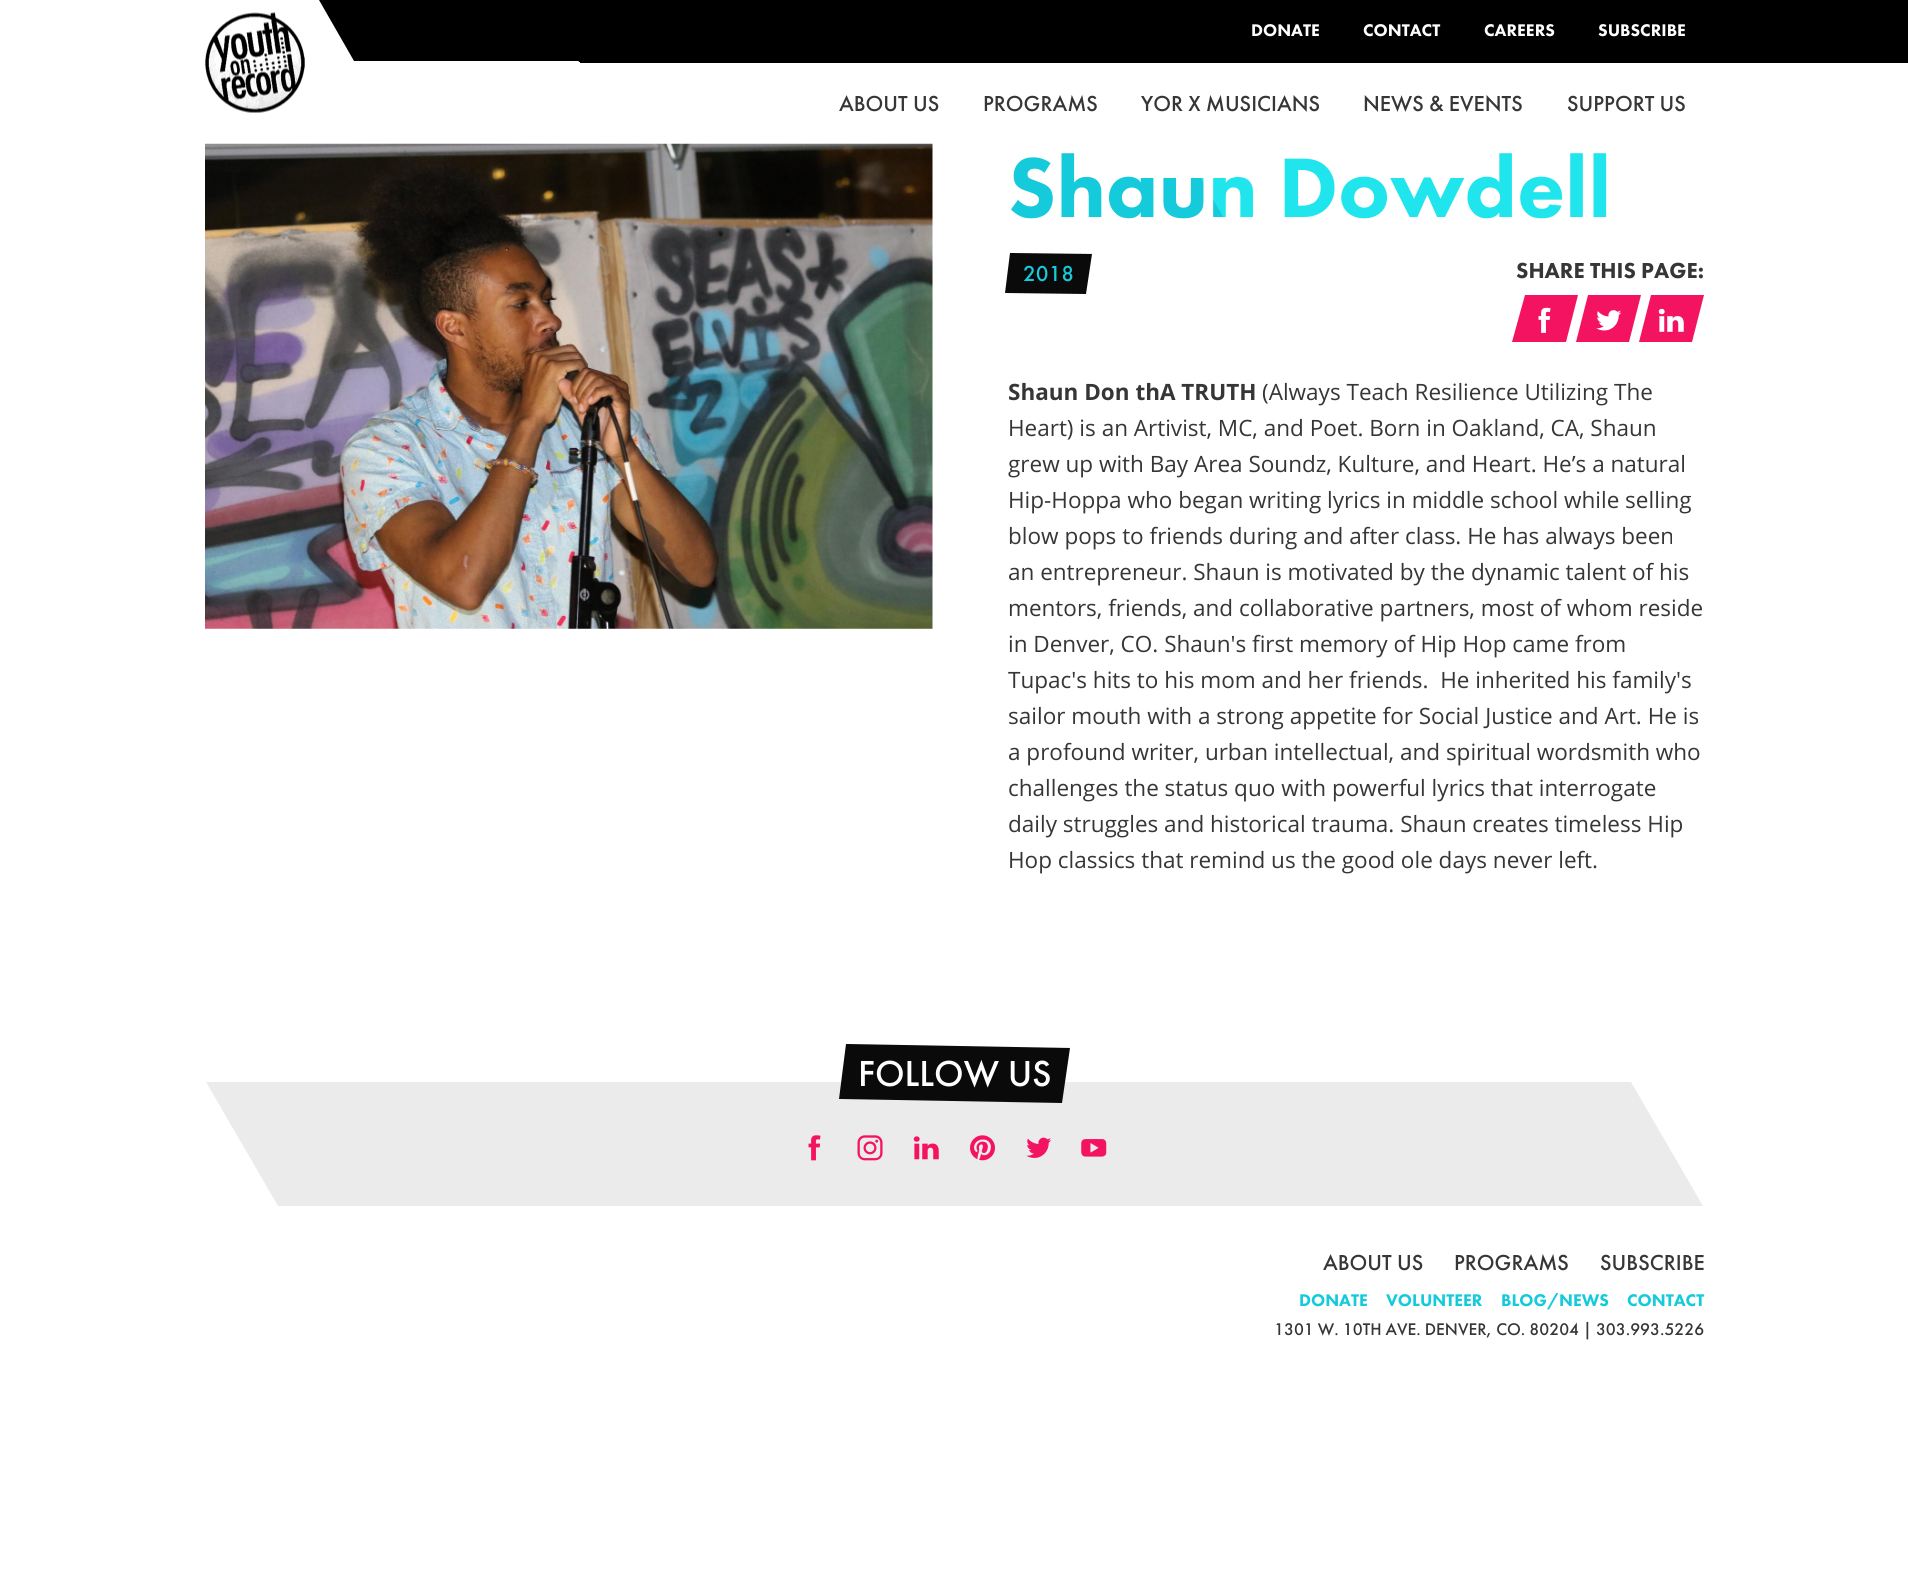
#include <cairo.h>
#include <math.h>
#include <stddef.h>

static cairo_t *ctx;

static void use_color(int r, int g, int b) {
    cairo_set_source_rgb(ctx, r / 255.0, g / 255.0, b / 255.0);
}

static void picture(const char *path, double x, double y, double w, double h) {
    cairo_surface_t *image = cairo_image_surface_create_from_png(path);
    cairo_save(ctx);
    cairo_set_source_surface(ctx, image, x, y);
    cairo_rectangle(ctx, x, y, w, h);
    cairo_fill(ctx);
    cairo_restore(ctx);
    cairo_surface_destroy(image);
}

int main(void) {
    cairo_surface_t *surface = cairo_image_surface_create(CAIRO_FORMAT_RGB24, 1908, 1576);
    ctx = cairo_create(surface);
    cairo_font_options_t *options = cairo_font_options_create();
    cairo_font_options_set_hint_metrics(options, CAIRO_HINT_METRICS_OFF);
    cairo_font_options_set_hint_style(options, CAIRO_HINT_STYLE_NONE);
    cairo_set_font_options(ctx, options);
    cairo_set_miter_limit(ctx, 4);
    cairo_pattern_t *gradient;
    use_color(255, 255, 255);
    cairo_paint(ctx);
    use_color(0, 0, 0);
    cairo_new_path(ctx);
    cairo_move_to(ctx, 319, 0);
    cairo_line_to(ctx, 382, 0);
    cairo_line_to(ctx, 417, 61);
    cairo_line_to(ctx, 354, 61);
    cairo_close_path(ctx);
    cairo_fill(ctx);
    cairo_new_path(ctx);
    cairo_move_to(ctx, 544, 0);
    cairo_line_to(ctx, 606, 0);
    cairo_line_to(ctx, 642, 62);
    cairo_line_to(ctx, 579, 62);
    cairo_close_path(ctx);
    cairo_fill(ctx);
    cairo_rectangle(ctx, 382, 0, 1323, 61);
    cairo_fill(ctx);
    picture("img1.png", 205, 12, 100, 101);
    cairo_rectangle(ctx, 580, 61, 1125, 2);
    cairo_fill(ctx);
    cairo_select_font_face(ctx, "Futura PT Black", CAIRO_FONT_SLANT_NORMAL, CAIRO_FONT_WEIGHT_NORMAL);
    cairo_set_font_size(ctx, 17.5);
    use_color(254, 254, 254);
    cairo_move_to(ctx, 1251, 36);
    cairo_show_text(ctx, "DONATE");
    cairo_move_to(ctx, 1363, 36);
    cairo_show_text(ctx, "CONTACT");
    cairo_move_to(ctx, 1484, 36);
    cairo_show_text(ctx, "CAREERS");
    cairo_move_to(ctx, 1598, 36);
    cairo_show_text(ctx, "SUBSCRIBE");
    use_color(0, 0, 0);
    cairo_rectangle(ctx, 1705, 0, 203, 63);
    cairo_fill(ctx);
    cairo_select_font_face(ctx, "Futura PT Medium", CAIRO_FONT_SLANT_NORMAL, CAIRO_FONT_WEIGHT_NORMAL);
    cairo_set_font_size(ctx, 22.5);
    use_color(54, 54, 54);
    cairo_move_to(ctx, 839, 111);
    cairo_show_text(ctx, "ABOUT US");
    cairo_move_to(ctx, 983, 111);
    cairo_show_text(ctx, "PROGRAMS");
    cairo_move_to(ctx, 1141, 111);
    cairo_show_text(ctx, "YOR X MUSICIANS");
    cairo_move_to(ctx, 1363, 111);
    cairo_show_text(ctx, "NEWS & EVENTS");
    cairo_move_to(ctx, 1567, 111);
    cairo_show_text(ctx, "SUPPORT US");
    picture("img2.png", 205, 143, 728, 486);
    cairo_select_font_face(ctx, "Futura PT Black", CAIRO_FONT_SLANT_NORMAL, CAIRO_FONT_WEIGHT_NORMAL);
    cairo_set_font_size(ctx, 87.5);
    gradient = cairo_pattern_create_linear(1061, 337, 1557, 50);
    cairo_pattern_add_color_stop_rgba(gradient, 0, 0.082, 0.792, 0.859, 1);
    cairo_pattern_add_color_stop_rgba(gradient, 0.35, 0.082, 0.792, 0.859, 1);
    cairo_pattern_add_color_stop_rgba(gradient, 0.35, 0.125, 0.898, 0.929, 1);
    cairo_pattern_add_color_stop_rgba(gradient, 1, 0.125, 0.898, 0.929, 1);
    cairo_set_source(ctx, gradient);
    cairo_pattern_destroy(gradient);
    cairo_move_to(ctx, 1008, 217);
    cairo_show_text(ctx, "Shaun Dowdell");
    use_color(10, 10, 10);
    cairo_new_path(ctx);
    cairo_move_to(ctx, 1010, 253);
    cairo_line_to(ctx, 1092, 254);
    cairo_line_to(ctx, 1086, 294);
    cairo_line_to(ctx, 1005, 293);
    cairo_close_path(ctx);
    cairo_fill(ctx);
    cairo_select_font_face(ctx, "Futura PT Medium", CAIRO_FONT_SLANT_NORMAL, CAIRO_FONT_WEIGHT_NORMAL);
    cairo_set_font_size(ctx, 22.5);
    use_color(21, 202, 219);
    cairo_move_to(ctx, 1023, 281);
    cairo_show_text(ctx, "2018");
    cairo_select_font_face(ctx, "Futura PT Black", CAIRO_FONT_SLANT_NORMAL, CAIRO_FONT_WEIGHT_NORMAL);
    use_color(54, 54, 54);
    cairo_move_to(ctx, 1516, 278);
    cairo_show_text(ctx, "SHARE THIS PAGE:");
    use_color(244, 19, 97);
    cairo_new_path(ctx);
    cairo_move_to(ctx, 1525, 295);
    cairo_line_to(ctx, 1578, 295);
    cairo_line_to(ctx, 1566, 342);
    cairo_line_to(ctx, 1512, 342);
    cairo_close_path(ctx);
    cairo_fill(ctx);
    picture("img3.png", 1538, 307, 13, 26);
    cairo_new_path(ctx);
    cairo_move_to(ctx, 1588, 295);
    cairo_line_to(ctx, 1641, 295);
    cairo_line_to(ctx, 1629, 342);
    cairo_line_to(ctx, 1576, 342);
    cairo_close_path(ctx);
    cairo_fill(ctx);
    picture("img4.png", 1596, 310, 26, 21);
    cairo_new_path(ctx);
    cairo_move_to(ctx, 1651, 295);
    cairo_line_to(ctx, 1704, 295);
    cairo_line_to(ctx, 1692, 342);
    cairo_line_to(ctx, 1639, 342);
    cairo_close_path(ctx);
    cairo_fill(ctx);
    picture("img5.png", 1658, 308, 26, 24);
    cairo_select_font_face(ctx, "Open Sans", CAIRO_FONT_SLANT_NORMAL, CAIRO_FONT_WEIGHT_BOLD);
    use_color(54, 54, 54);
    cairo_move_to(ctx, 1008, 400);
    cairo_show_text(ctx, "Shaun Don thA TRUTH");
    cairo_select_font_face(ctx, "Open Sans", CAIRO_FONT_SLANT_NORMAL, CAIRO_FONT_WEIGHT_NORMAL);
    cairo_move_to(ctx, 1262, 400);
    cairo_show_text(ctx, "(Always Teach Resilience Utilizing The");
    cairo_move_to(ctx, 1008, 436);
    cairo_show_text(ctx, "Heart) is an Artivist, MC, and Poet. Born in Oakland, CA, Shaun");
    cairo_move_to(ctx, 1008, 472);
    cairo_show_text(ctx, "grew up with Bay Area Soundz, Kulture, and Heart. He’s a natural");
    cairo_move_to(ctx, 1008, 508);
    cairo_show_text(ctx, "Hip-Hoppa who began writing lyrics in middle school while selling");
    cairo_move_to(ctx, 1008, 544);
    cairo_show_text(ctx, "blow pops to friends during and after class. He has always been");
    cairo_move_to(ctx, 1008, 580);
    cairo_show_text(ctx, "an entrepreneur. Shaun is motivated by the dynamic talent of his");
    cairo_move_to(ctx, 1008, 616);
    cairo_show_text(ctx, "mentors, friends, and collaborative partners, most of whom reside");
    cairo_move_to(ctx, 1008, 652);
    cairo_show_text(ctx, "in Denver, CO. Shaun's first memory of Hip Hop came from");
    cairo_move_to(ctx, 1008, 688);
    cairo_show_text(ctx, "Tupac's hits to his mom and her friends.  He inherited his family's");
    cairo_move_to(ctx, 1008, 724);
    cairo_show_text(ctx, "sailor mouth with a strong appetite for Social Justice and Art. He is");
    cairo_move_to(ctx, 1008, 760);
    cairo_show_text(ctx, "a profound writer, urban intellectual, and spiritual wordsmith who");
    cairo_move_to(ctx, 1008, 796);
    cairo_show_text(ctx, "challenges the status quo with powerful lyrics that interrogate");
    cairo_move_to(ctx, 1008, 832);
    cairo_show_text(ctx, "daily struggles and historical trauma. Shaun creates timeless Hip");
    cairo_move_to(ctx, 1008, 868);
    cairo_show_text(ctx, "Hop classics that remind us the good ole days never left.");
    use_color(235, 235, 235);
    cairo_new_path(ctx);
    cairo_move_to(ctx, 206, 1082);
    cairo_line_to(ctx, 1631, 1082);
    cairo_line_to(ctx, 1703, 1206);
    cairo_line_to(ctx, 278, 1206);
    cairo_close_path(ctx);
    cairo_fill(ctx);
    use_color(10, 10, 10);
    cairo_new_path(ctx);
    cairo_move_to(ctx, 846, 1044);
    cairo_line_to(ctx, 1070, 1048);
    cairo_line_to(ctx, 1062, 1103);
    cairo_line_to(ctx, 839, 1099);
    cairo_close_path(ctx);
    cairo_fill(ctx);
    cairo_select_font_face(ctx, "Futura PT Medium", CAIRO_FONT_SLANT_NORMAL, CAIRO_FONT_WEIGHT_NORMAL);
    cairo_set_font_size(ctx, 37.5);
    use_color(254, 254, 254);
    cairo_move_to(ctx, 858, 1086);
    cairo_show_text(ctx, "FOLLOW US");
    picture("img6.png", 808, 1135, 13, 26);
    picture("img7.png", 857, 1135, 26, 26);
    picture("img8.png", 913, 1136, 26, 24);
    picture("img9.png", 970, 1135, 25, 26);
    picture("img10.png", 1026, 1137, 26, 21);
    picture("img11.png", 1081, 1139, 26, 18);
    cairo_set_font_size(ctx, 22.5);
    use_color(54, 54, 54);
    cairo_move_to(ctx, 1323, 1270);
    cairo_show_text(ctx, "ABOUT US");
    cairo_move_to(ctx, 1454, 1270);
    cairo_show_text(ctx, "PROGRAMS");
    cairo_move_to(ctx, 1600, 1270);
    cairo_show_text(ctx, "SUBSCRIBE");
    cairo_select_font_face(ctx, "Futura PT Black", CAIRO_FONT_SLANT_NORMAL, CAIRO_FONT_WEIGHT_NORMAL);
    cairo_set_font_size(ctx, 17.5);
    use_color(21, 202, 219);
    cairo_move_to(ctx, 1299, 1306);
    cairo_show_text(ctx, "DONATE");
    cairo_move_to(ctx, 1386, 1306);
    cairo_show_text(ctx, "VOLUNTEER");
    cairo_move_to(ctx, 1501, 1306);
    cairo_show_text(ctx, "BLOG/NEWS");
    cairo_move_to(ctx, 1627, 1306);
    cairo_show_text(ctx, "CONTACT");
    cairo_select_font_face(ctx, "Futura PT Medium", CAIRO_FONT_SLANT_NORMAL, CAIRO_FONT_WEIGHT_NORMAL);
    use_color(54, 54, 54);
    cairo_move_to(ctx, 1274, 1335);
    cairo_show_text(ctx, "1301 W. 10TH AVE. DENVER, CO. 80204 | 303.993.5226");
    cairo_surface_write_to_png(surface, "result.png");
    cairo_font_options_destroy(options);
    cairo_destroy(ctx);
    cairo_surface_destroy(surface);
    return 0;
}
